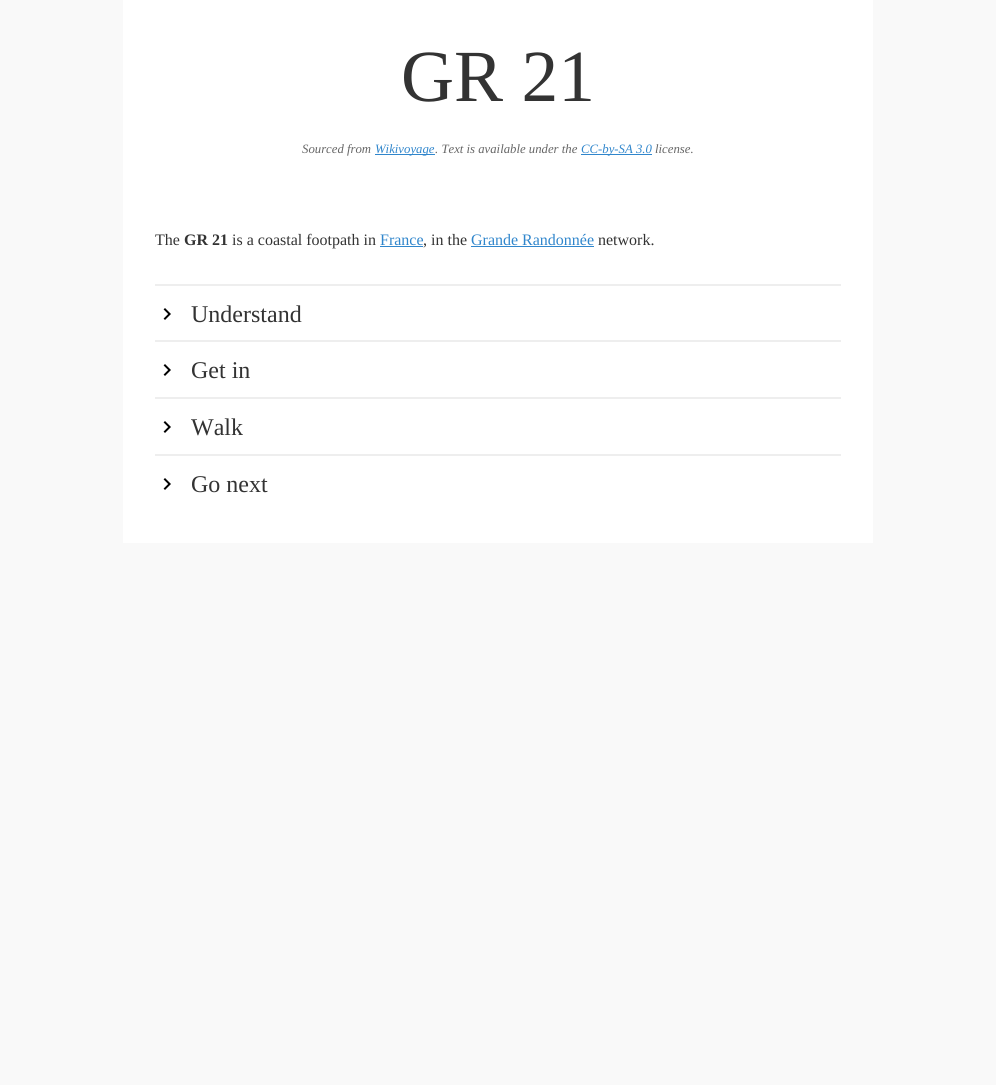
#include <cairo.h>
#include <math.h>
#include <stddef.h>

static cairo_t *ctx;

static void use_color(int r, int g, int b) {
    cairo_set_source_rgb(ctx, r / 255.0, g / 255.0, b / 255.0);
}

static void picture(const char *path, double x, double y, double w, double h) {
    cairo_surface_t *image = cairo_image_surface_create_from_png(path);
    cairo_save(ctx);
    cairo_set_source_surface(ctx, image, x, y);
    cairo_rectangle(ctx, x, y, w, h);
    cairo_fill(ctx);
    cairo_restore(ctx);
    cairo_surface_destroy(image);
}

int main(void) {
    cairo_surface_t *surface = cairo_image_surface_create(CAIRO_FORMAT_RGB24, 996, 1085);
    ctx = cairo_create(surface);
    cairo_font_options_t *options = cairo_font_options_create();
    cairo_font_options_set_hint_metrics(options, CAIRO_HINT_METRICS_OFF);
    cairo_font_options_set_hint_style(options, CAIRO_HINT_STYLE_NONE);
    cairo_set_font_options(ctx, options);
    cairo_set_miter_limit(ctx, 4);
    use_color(249, 249, 249);
    cairo_paint(ctx);
    use_color(255, 255, 255);
    cairo_rectangle(ctx, 123, 0, 750, 543);
    cairo_fill(ctx);
    cairo_select_font_face(ctx, "Liberation Serif", CAIRO_FONT_SLANT_NORMAL, CAIRO_FONT_WEIGHT_NORMAL);
    cairo_set_font_size(ctx, 73.5);
    use_color(51, 51, 51);
    cairo_move_to(ctx, 401, 101);
    cairo_show_text(ctx, "GR 21");
    cairo_select_font_face(ctx, "Liberation Serif", CAIRO_FONT_SLANT_ITALIC, CAIRO_FONT_WEIGHT_NORMAL);
    cairo_set_font_size(ctx, 12.75);
    use_color(102, 102, 102);
    cairo_move_to(ctx, 302, 153);
    cairo_show_text(ctx, "Sourced from");
    use_color(48, 134, 204);
    cairo_rectangle(ctx, 375, 154, 60, 1);
    cairo_fill(ctx);
    cairo_move_to(ctx, 375, 153);
    cairo_show_text(ctx, "Wikivoyage");
    use_color(102, 102, 102);
    cairo_move_to(ctx, 435, 153);
    cairo_show_text(ctx, ". Text is available under the");
    use_color(48, 134, 204);
    cairo_rectangle(ctx, 581, 154, 71, 1);
    cairo_fill(ctx);
    cairo_move_to(ctx, 581, 153);
    cairo_show_text(ctx, "CC-by-SA 3.0");
    use_color(102, 102, 102);
    cairo_move_to(ctx, 655, 153);
    cairo_show_text(ctx, "license.");
    cairo_select_font_face(ctx, "Liberation Serif", CAIRO_FONT_SLANT_NORMAL, CAIRO_FONT_WEIGHT_NORMAL);
    cairo_set_font_size(ctx, 16);
    use_color(51, 51, 51);
    cairo_move_to(ctx, 155, 245);
    cairo_show_text(ctx, "The");
    cairo_select_font_face(ctx, "Liberation Serif", CAIRO_FONT_SLANT_NORMAL, CAIRO_FONT_WEIGHT_BOLD);
    cairo_move_to(ctx, 184, 245);
    cairo_show_text(ctx, "GR 21");
    cairo_select_font_face(ctx, "Liberation Serif", CAIRO_FONT_SLANT_NORMAL, CAIRO_FONT_WEIGHT_NORMAL);
    cairo_move_to(ctx, 232, 245);
    cairo_show_text(ctx, "is a coastal footpath in");
    use_color(48, 134, 204);
    cairo_move_to(ctx, 380, 245);
    cairo_show_text(ctx, "France");
    cairo_rectangle(ctx, 380, 246, 43, 1);
    cairo_fill(ctx);
    use_color(51, 51, 51);
    cairo_move_to(ctx, 423, 245);
    cairo_show_text(ctx, ", in the");
    use_color(48, 134, 204);
    cairo_move_to(ctx, 471, 245);
    cairo_show_text(ctx, "Grande Randonnée");
    cairo_rectangle(ctx, 471, 246, 123, 1);
    cairo_fill(ctx);
    use_color(51, 51, 51);
    cairo_move_to(ctx, 598, 245);
    cairo_show_text(ctx, "network.");
    use_color(238, 238, 238);
    cairo_rectangle(ctx, 155, 284, 686, 2);
    cairo_fill(ctx);
    picture("img1.png", 163, 308, 8, 12);
    cairo_set_font_size(ctx, 24);
    use_color(51, 51, 51);
    cairo_move_to(ctx, 191, 322);
    cairo_show_text(ctx, "Understand");
    use_color(238, 238, 238);
    cairo_rectangle(ctx, 155, 340, 686, 2);
    cairo_fill(ctx);
    picture("img1.png", 163, 364, 8, 12);
    use_color(51, 51, 51);
    cairo_move_to(ctx, 191, 378);
    cairo_show_text(ctx, "Get in");
    use_color(238, 238, 238);
    cairo_rectangle(ctx, 155, 397, 686, 2);
    cairo_fill(ctx);
    picture("img1.png", 163, 421, 8, 12);
    use_color(51, 51, 51);
    cairo_move_to(ctx, 191, 435);
    cairo_show_text(ctx, "Walk");
    use_color(238, 238, 238);
    cairo_rectangle(ctx, 155, 454, 686, 2);
    cairo_fill(ctx);
    picture("img1.png", 163, 478, 8, 12);
    use_color(51, 51, 51);
    cairo_move_to(ctx, 191, 492);
    cairo_show_text(ctx, "Go next");
    cairo_surface_write_to_png(surface, "result.png");
    cairo_font_options_destroy(options);
    cairo_destroy(ctx);
    cairo_surface_destroy(surface);
    return 0;
}
